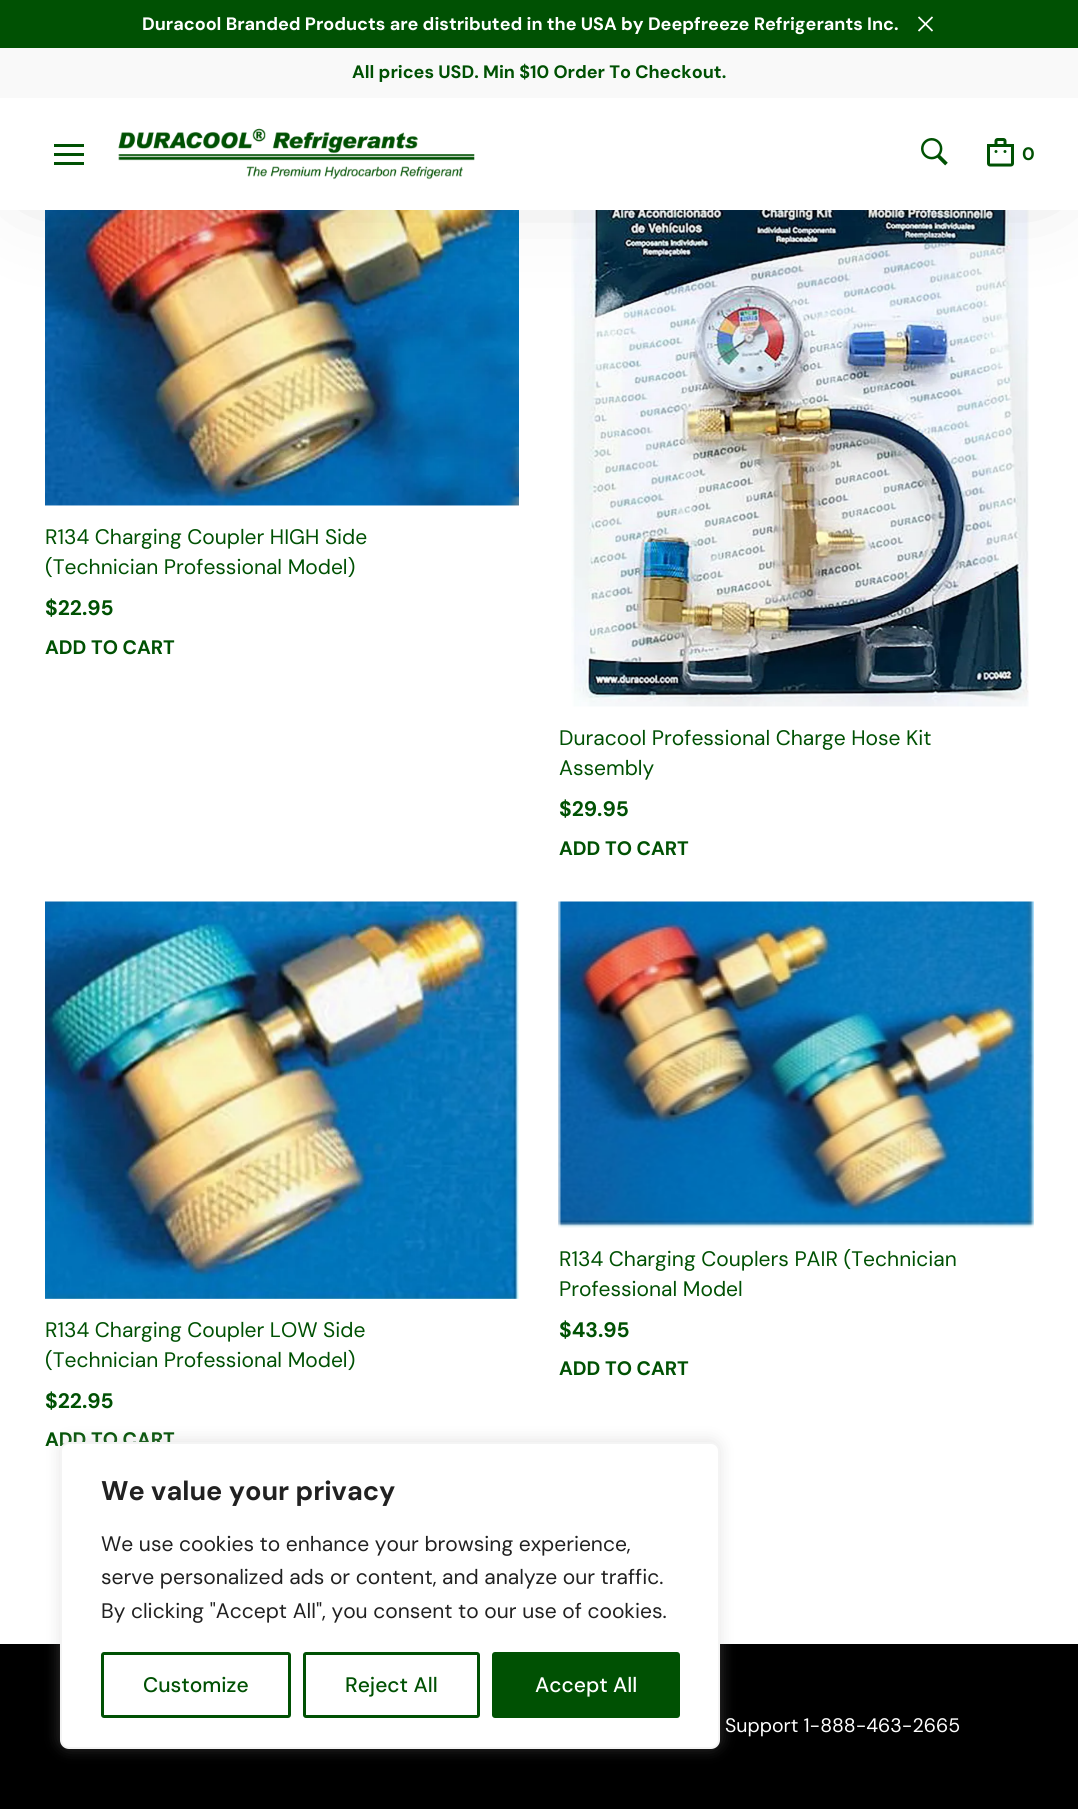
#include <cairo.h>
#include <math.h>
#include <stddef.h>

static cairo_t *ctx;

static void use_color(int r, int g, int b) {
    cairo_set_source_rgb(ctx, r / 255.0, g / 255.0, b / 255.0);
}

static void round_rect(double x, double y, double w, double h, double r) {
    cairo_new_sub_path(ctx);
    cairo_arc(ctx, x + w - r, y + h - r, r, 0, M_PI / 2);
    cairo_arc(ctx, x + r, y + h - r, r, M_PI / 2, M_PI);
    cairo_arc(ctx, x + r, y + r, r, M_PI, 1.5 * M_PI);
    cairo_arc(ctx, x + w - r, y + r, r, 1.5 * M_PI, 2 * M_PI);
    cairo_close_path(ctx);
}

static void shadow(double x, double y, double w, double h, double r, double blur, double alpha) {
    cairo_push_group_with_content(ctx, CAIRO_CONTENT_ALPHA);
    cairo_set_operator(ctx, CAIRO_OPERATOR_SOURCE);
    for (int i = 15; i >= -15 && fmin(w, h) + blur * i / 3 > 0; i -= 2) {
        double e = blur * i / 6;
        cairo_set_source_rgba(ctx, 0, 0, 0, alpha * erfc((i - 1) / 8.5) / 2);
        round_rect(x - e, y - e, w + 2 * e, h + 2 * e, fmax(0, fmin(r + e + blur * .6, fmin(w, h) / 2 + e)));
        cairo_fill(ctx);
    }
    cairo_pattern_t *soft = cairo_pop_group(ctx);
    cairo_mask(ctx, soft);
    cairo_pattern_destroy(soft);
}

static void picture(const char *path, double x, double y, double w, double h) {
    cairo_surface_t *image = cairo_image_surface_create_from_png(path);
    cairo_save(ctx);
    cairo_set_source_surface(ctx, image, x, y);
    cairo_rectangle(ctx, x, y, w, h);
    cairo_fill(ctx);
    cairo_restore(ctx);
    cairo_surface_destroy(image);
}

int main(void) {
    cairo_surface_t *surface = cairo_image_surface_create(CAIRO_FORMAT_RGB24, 1078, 1809);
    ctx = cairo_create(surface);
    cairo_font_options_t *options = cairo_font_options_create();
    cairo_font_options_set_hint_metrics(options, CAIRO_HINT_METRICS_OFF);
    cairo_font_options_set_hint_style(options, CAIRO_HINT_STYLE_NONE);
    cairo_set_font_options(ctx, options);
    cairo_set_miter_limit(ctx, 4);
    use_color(255, 255, 255);
    cairo_paint(ctx);
    picture("img6.png", 45, 210, 474, 296);
    picture("img7.png", 571, 210, 458, 497);
    use_color(0, 0, 0);
    shadow(29, 29, 1021, 153, 0, 49, 0.17);
    use_color(255, 255, 255);
    cairo_rectangle(ctx, 0, 98, 1078, 112);
    cairo_fill(ctx);
    use_color(0, 81, 3);
    cairo_rectangle(ctx, 0, 0, 1078, 48);
    cairo_fill(ctx);
    cairo_select_font_face(ctx, "DM Sans", CAIRO_FONT_SLANT_NORMAL, CAIRO_FONT_WEIGHT_BOLD);
    cairo_set_font_size(ctx, 18);
    use_color(255, 255, 255);
    cairo_move_to(ctx, 142, 30);
    cairo_show_text(ctx, "Duracool Branded Products are distributed in the USA by Deepfreeze Refrigerants Inc.");
    picture("img1.png", 918, 16, 15, 16);
    use_color(249, 249, 249);
    cairo_rectangle(ctx, 0, 48, 1078, 50);
    cairo_fill(ctx);
    use_color(0, 81, 3);
    cairo_move_to(ctx, 352, 78);
    cairo_show_text(ctx, "All prices USD. Min $10 Order To Checkout.");
    picture("img2.png", 54, 144, 30, 21);
    picture("img3.png", 118, 128, 357, 52);
    picture("img4.png", 921, 138, 27, 28);
    picture("img5.png", 987, 138, 27, 29);
    cairo_move_to(ctx, 1022, 160);
    cairo_show_text(ctx, "0");
    cairo_select_font_face(ctx, "DM Sans", CAIRO_FONT_SLANT_NORMAL, CAIRO_FONT_WEIGHT_NORMAL);
    cairo_set_font_size(ctx, 21);
    cairo_move_to(ctx, 45, 544);
    cairo_show_text(ctx, "R134 Charging Coupler HIGH Side");
    cairo_move_to(ctx, 45, 574);
    cairo_show_text(ctx, "(Technician Professional Model)");
    cairo_select_font_face(ctx, "DM Sans", CAIRO_FONT_SLANT_NORMAL, CAIRO_FONT_WEIGHT_BOLD);
    cairo_move_to(ctx, 45, 615);
    cairo_show_text(ctx, "$22.95");
    cairo_set_font_size(ctx, 19.5);
    cairo_move_to(ctx, 45, 654);
    cairo_show_text(ctx, "ADD TO CART");
    cairo_select_font_face(ctx, "DM Sans", CAIRO_FONT_SLANT_NORMAL, CAIRO_FONT_WEIGHT_NORMAL);
    cairo_set_font_size(ctx, 21);
    cairo_move_to(ctx, 559, 745);
    cairo_show_text(ctx, "Duracool Professional Charge Hose Kit");
    cairo_move_to(ctx, 559, 775);
    cairo_show_text(ctx, "Assembly");
    cairo_select_font_face(ctx, "DM Sans", CAIRO_FONT_SLANT_NORMAL, CAIRO_FONT_WEIGHT_BOLD);
    cairo_move_to(ctx, 559, 816);
    cairo_show_text(ctx, "$29.95");
    cairo_set_font_size(ctx, 19.5);
    cairo_move_to(ctx, 559, 855);
    cairo_show_text(ctx, "ADD TO CART");
    picture("img8.png", 45, 901, 474, 398);
    cairo_select_font_face(ctx, "DM Sans", CAIRO_FONT_SLANT_NORMAL, CAIRO_FONT_WEIGHT_NORMAL);
    cairo_set_font_size(ctx, 21);
    cairo_move_to(ctx, 45, 1337);
    cairo_show_text(ctx, "R134 Charging Coupler LOW Side");
    cairo_move_to(ctx, 45, 1367);
    cairo_show_text(ctx, "(Technician Professional Model)");
    cairo_select_font_face(ctx, "DM Sans", CAIRO_FONT_SLANT_NORMAL, CAIRO_FONT_WEIGHT_BOLD);
    cairo_move_to(ctx, 45, 1408);
    cairo_show_text(ctx, "$22.95");
    cairo_set_font_size(ctx, 19.5);
    cairo_move_to(ctx, 45, 1446);
    cairo_show_text(ctx, "ADD TO CART");
    picture("img9.png", 558, 901, 476, 327);
    cairo_select_font_face(ctx, "DM Sans", CAIRO_FONT_SLANT_NORMAL, CAIRO_FONT_WEIGHT_NORMAL);
    cairo_set_font_size(ctx, 21);
    cairo_move_to(ctx, 559, 1266);
    cairo_show_text(ctx, "R134 Charging Couplers PAIR (Technician");
    cairo_move_to(ctx, 559, 1296);
    cairo_show_text(ctx, "Professional Model");
    cairo_select_font_face(ctx, "DM Sans", CAIRO_FONT_SLANT_NORMAL, CAIRO_FONT_WEIGHT_BOLD);
    cairo_move_to(ctx, 559, 1337);
    cairo_show_text(ctx, "$43.95");
    cairo_set_font_size(ctx, 19.5);
    cairo_move_to(ctx, 559, 1375);
    cairo_show_text(ctx, "ADD TO CART");
    use_color(0, 0, 0);
    cairo_rectangle(ctx, 0, 1644, 1078, 165);
    cairo_fill(ctx);
    cairo_select_font_face(ctx, "DM Sans", CAIRO_FONT_SLANT_NORMAL, CAIRO_FONT_WEIGHT_NORMAL);
    use_color(255, 255, 255);
    cairo_move_to(ctx, 725, 1732);
    cairo_show_text(ctx, "Support 1-888-463-2665");
    use_color(172, 171, 171);
    shadow(60, 1440, 660, 308, 9, 7.5, 0.3);
    use_color(255, 255, 255);
    round_rect(61, 1443, 658, 305, 8);
    cairo_fill_preserve(ctx);
    use_color(244, 244, 244);
    cairo_stroke(ctx);
    cairo_select_font_face(ctx, "DM Sans", CAIRO_FONT_SLANT_NORMAL, CAIRO_FONT_WEIGHT_BOLD);
    cairo_set_font_size(ctx, 27);
    use_color(33, 33, 33);
    cairo_move_to(ctx, 101, 1500);
    cairo_show_text(ctx, "We value your privacy");
    cairo_select_font_face(ctx, "DM Sans", CAIRO_FONT_SLANT_NORMAL, CAIRO_FONT_WEIGHT_NORMAL);
    cairo_set_font_size(ctx, 21);
    cairo_move_to(ctx, 101, 1551);
    cairo_show_text(ctx, "We use cookies to enhance your browsing experience,");
    cairo_move_to(ctx, 101, 1584);
    cairo_show_text(ctx, "serve personalized ads or content, and analyze our traffic.");
    cairo_move_to(ctx, 101, 1618);
    cairo_show_text(ctx, "By clicking \"Accept All\", you consent to our use of cookies.");
    round_rect(102.5, 1653.5, 187, 63, 1.5);
    use_color(0, 81, 3);
    cairo_set_line_width(ctx, 3);
    cairo_stroke(ctx);
    cairo_select_font_face(ctx, "DM Sans Medium", CAIRO_FONT_SLANT_NORMAL, CAIRO_FONT_WEIGHT_NORMAL);
    cairo_move_to(ctx, 143, 1692);
    cairo_show_text(ctx, "Customize");
    round_rect(304.5, 1653.5, 174, 63, 1.5);
    cairo_stroke(ctx);
    cairo_move_to(ctx, 345, 1692);
    cairo_show_text(ctx, "Reject All");
    round_rect(493.5, 1653.5, 185, 63, 1.5);
    cairo_fill_preserve(ctx);
    cairo_stroke(ctx);
    use_color(255, 255, 255);
    cairo_move_to(ctx, 535, 1692);
    cairo_show_text(ctx, "Accept All");
    cairo_surface_write_to_png(surface, "result.png");
    cairo_font_options_destroy(options);
    cairo_destroy(ctx);
    cairo_surface_destroy(surface);
    return 0;
}
